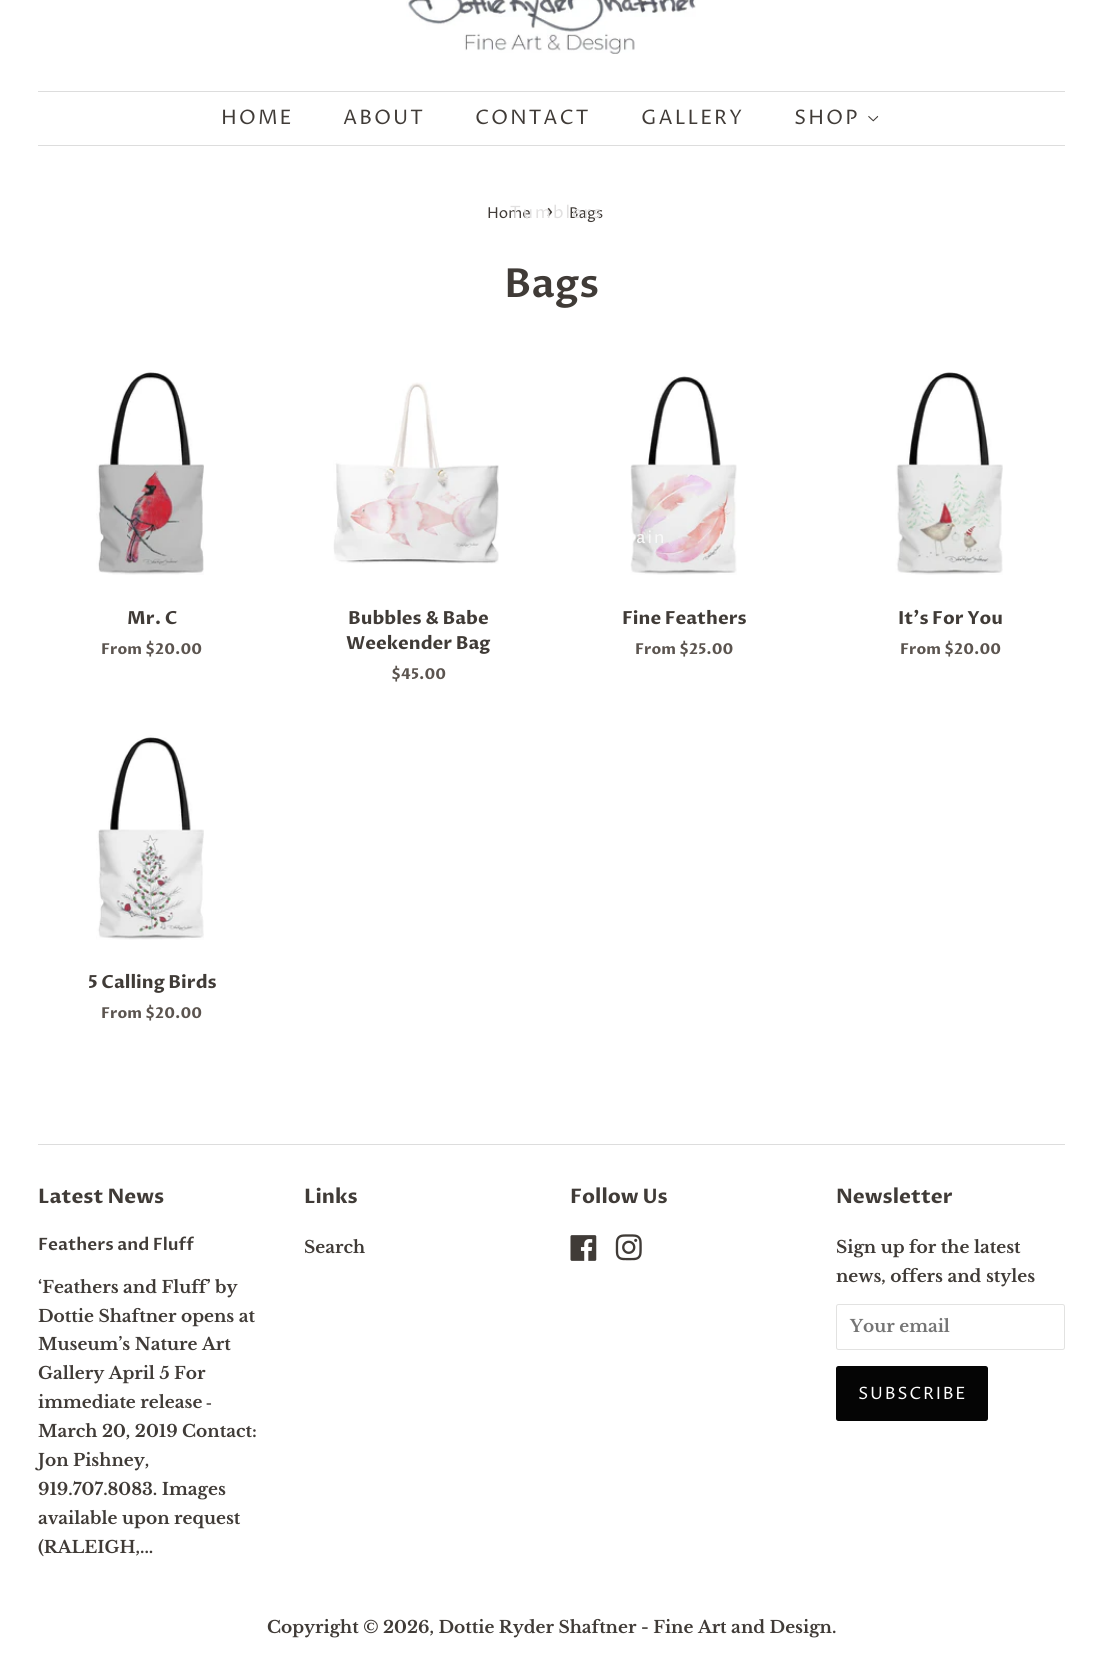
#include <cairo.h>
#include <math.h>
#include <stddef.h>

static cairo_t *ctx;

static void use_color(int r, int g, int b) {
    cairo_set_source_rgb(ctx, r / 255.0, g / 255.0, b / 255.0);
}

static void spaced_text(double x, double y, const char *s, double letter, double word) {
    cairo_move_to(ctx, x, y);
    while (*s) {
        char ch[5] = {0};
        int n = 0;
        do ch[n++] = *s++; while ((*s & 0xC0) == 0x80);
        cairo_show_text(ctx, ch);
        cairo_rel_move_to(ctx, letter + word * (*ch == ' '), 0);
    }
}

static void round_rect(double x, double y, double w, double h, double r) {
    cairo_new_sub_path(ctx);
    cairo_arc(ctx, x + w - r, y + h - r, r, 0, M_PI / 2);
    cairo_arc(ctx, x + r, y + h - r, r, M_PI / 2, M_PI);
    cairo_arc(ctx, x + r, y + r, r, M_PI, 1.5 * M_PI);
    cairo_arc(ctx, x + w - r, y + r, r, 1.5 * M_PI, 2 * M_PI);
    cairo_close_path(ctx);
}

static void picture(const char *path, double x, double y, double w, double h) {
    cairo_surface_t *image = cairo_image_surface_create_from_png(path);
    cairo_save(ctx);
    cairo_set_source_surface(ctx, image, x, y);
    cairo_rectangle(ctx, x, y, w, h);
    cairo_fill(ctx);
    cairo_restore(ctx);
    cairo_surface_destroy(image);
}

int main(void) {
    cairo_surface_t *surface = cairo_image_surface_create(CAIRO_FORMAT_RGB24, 1102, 1678);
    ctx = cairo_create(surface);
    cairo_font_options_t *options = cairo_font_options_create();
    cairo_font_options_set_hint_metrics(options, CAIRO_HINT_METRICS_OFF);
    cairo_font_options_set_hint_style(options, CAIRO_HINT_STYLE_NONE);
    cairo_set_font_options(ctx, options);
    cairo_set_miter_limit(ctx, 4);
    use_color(255, 255, 255);
    cairo_paint(ctx);
    picture("img1.png", 406, 0, 290, 54);
    use_color(221, 221, 221);
    cairo_rectangle(ctx, 38, 91, 1027, 1);
    cairo_fill(ctx);
    cairo_rectangle(ctx, 38, 145, 1027, 1);
    cairo_fill(ctx);
    cairo_select_font_face(ctx, "Proza Libre", CAIRO_FONT_SLANT_NORMAL, CAIRO_FONT_WEIGHT_NORMAL);
    cairo_set_font_size(ctx, 20);
    use_color(64, 59, 55);
    spaced_text(221, 124, "HOME", 2, 0);
    spaced_text(343, 124, "ABOUT", 2, 0);
    spaced_text(475, 124, "CONTACT", 2, 0);
    spaced_text(794, 124, "SHOP", 2, 0);
    picture("img2.png", 868, 115, 11, 7);
    cairo_set_font_size(ctx, 15);
    cairo_move_to(ctx, 487, 218);
    cairo_show_text(ctx, "Home");
    cairo_set_font_size(ctx, 21);
    cairo_move_to(ctx, 546, 218);
    cairo_show_text(ctx, "›");
    cairo_set_font_size(ctx, 15);
    cairo_move_to(ctx, 569, 218);
    cairo_show_text(ctx, "Bags");
    cairo_set_font_size(ctx, 17);
    use_color(225, 224, 224);
    spaced_text(510, 218, "Tumblers", 2, 0);
    picture("img5.png", 630, 376, 107, 199);
    use_color(248, 248, 248);
    spaced_text(636, 543, "ain", 2, 0);
    cairo_set_font_size(ctx, 20);
    use_color(64, 59, 55);
    spaced_text(641, 124, "GALLERY", 2, 0);
    cairo_select_font_face(ctx, "Proza Libre SemiBold", CAIRO_FONT_SLANT_NORMAL, CAIRO_FONT_WEIGHT_NORMAL);
    cairo_set_font_size(ctx, 40);
    cairo_move_to(ctx, 504, 297);
    cairo_show_text(ctx, "Bags");
    picture("img3.png", 96, 370, 108, 205);
    cairo_select_font_face(ctx, "Proza Libre", CAIRO_FONT_SLANT_NORMAL, CAIRO_FONT_WEIGHT_BOLD);
    cairo_set_font_size(ctx, 18);
    cairo_move_to(ctx, 127, 624);
    cairo_show_text(ctx, "Mr. C");
    cairo_set_font_size(ctx, 15);
    use_color(91, 84, 79);
    cairo_move_to(ctx, 101, 654);
    cairo_show_text(ctx, "From $20.00");
    picture("img4.png", 333, 382, 166, 182);
    cairo_set_font_size(ctx, 18);
    use_color(64, 59, 55);
    cairo_move_to(ctx, 348, 624);
    cairo_show_text(ctx, "Bubbles & Babe");
    cairo_move_to(ctx, 346, 649);
    cairo_show_text(ctx, "Weekender Bag");
    cairo_set_font_size(ctx, 15);
    use_color(91, 84, 79);
    cairo_move_to(ctx, 391, 679);
    cairo_show_text(ctx, "$45.00");
    cairo_set_font_size(ctx, 18);
    use_color(64, 59, 55);
    cairo_move_to(ctx, 622, 624);
    cairo_show_text(ctx, "Fine Feathers");
    cairo_set_font_size(ctx, 15);
    use_color(91, 84, 79);
    cairo_move_to(ctx, 635, 654);
    cairo_show_text(ctx, "From $25.00");
    picture("img6.png", 895, 372, 108, 203);
    cairo_set_font_size(ctx, 18);
    use_color(64, 59, 55);
    cairo_move_to(ctx, 898, 624);
    cairo_show_text(ctx, "It's For You");
    cairo_set_font_size(ctx, 15);
    use_color(91, 84, 79);
    cairo_move_to(ctx, 900, 654);
    cairo_show_text(ctx, "From $20.00");
    picture("img7.png", 96, 735, 108, 205);
    cairo_set_font_size(ctx, 18);
    use_color(64, 59, 55);
    cairo_move_to(ctx, 88, 988);
    cairo_show_text(ctx, "5 Calling Birds");
    cairo_set_font_size(ctx, 15);
    use_color(91, 84, 79);
    cairo_move_to(ctx, 101, 1018);
    cairo_show_text(ctx, "From $20.00");
    use_color(221, 221, 221);
    cairo_rectangle(ctx, 38, 1144, 1027, 1);
    cairo_fill(ctx);
    cairo_set_font_size(ctx, 20);
    use_color(64, 59, 55);
    cairo_move_to(ctx, 38, 1203);
    cairo_show_text(ctx, "Latest News");
    cairo_select_font_face(ctx, "Proza Libre SemiBold", CAIRO_FONT_SLANT_NORMAL, CAIRO_FONT_WEIGHT_NORMAL);
    cairo_set_font_size(ctx, 17);
    cairo_move_to(ctx, 38, 1250);
    cairo_show_text(ctx, "Feathers and Fluff");
    cairo_select_font_face(ctx, "Libre Baskerville", CAIRO_FONT_SLANT_NORMAL, CAIRO_FONT_WEIGHT_BOLD);
    cairo_move_to(ctx, 38, 1293);
    cairo_show_text(ctx, "‘Feathers and Fluff’ by");
    cairo_move_to(ctx, 38, 1322);
    cairo_show_text(ctx, "Dottie Shaftner opens at");
    cairo_move_to(ctx, 38, 1350);
    cairo_show_text(ctx, "Museum’s Nature Art");
    cairo_move_to(ctx, 38, 1379);
    cairo_show_text(ctx, "Gallery April 5 For");
    cairo_move_to(ctx, 38, 1408);
    cairo_show_text(ctx, "immediate release");
    cairo_select_font_face(ctx, "Liberation Serif", CAIRO_FONT_SLANT_NORMAL, CAIRO_FONT_WEIGHT_BOLD);
    cairo_move_to(ctx, 206, 1408);
    cairo_show_text(ctx, "‐");
    cairo_select_font_face(ctx, "Libre Baskerville", CAIRO_FONT_SLANT_NORMAL, CAIRO_FONT_WEIGHT_BOLD);
    cairo_move_to(ctx, 38, 1437);
    cairo_show_text(ctx, "March 20, 2019 Contact:");
    cairo_move_to(ctx, 38, 1466);
    cairo_show_text(ctx, "Jon Pishney,");
    cairo_move_to(ctx, 38, 1495);
    cairo_show_text(ctx, "919.707.8083. Images");
    cairo_move_to(ctx, 38, 1524);
    cairo_show_text(ctx, "available upon request");
    cairo_move_to(ctx, 38, 1553);
    cairo_show_text(ctx, "(RALEIGH,...");
    cairo_select_font_face(ctx, "Proza Libre", CAIRO_FONT_SLANT_NORMAL, CAIRO_FONT_WEIGHT_BOLD);
    cairo_set_font_size(ctx, 20);
    cairo_move_to(ctx, 304, 1203);
    cairo_show_text(ctx, "Links");
    cairo_select_font_face(ctx, "Libre Baskerville", CAIRO_FONT_SLANT_NORMAL, CAIRO_FONT_WEIGHT_BOLD);
    cairo_set_font_size(ctx, 17);
    cairo_move_to(ctx, 304, 1253);
    cairo_show_text(ctx, "Search");
    cairo_select_font_face(ctx, "Proza Libre", CAIRO_FONT_SLANT_NORMAL, CAIRO_FONT_WEIGHT_BOLD);
    cairo_set_font_size(ctx, 20);
    cairo_move_to(ctx, 570, 1203);
    cairo_show_text(ctx, "Follow Us");
    picture("img8.png", 570, 1235, 27, 26);
    picture("img9.png", 615, 1234, 27, 27);
    cairo_move_to(ctx, 836, 1203);
    cairo_show_text(ctx, "Newsletter");
    cairo_select_font_face(ctx, "Libre Baskerville", CAIRO_FONT_SLANT_NORMAL, CAIRO_FONT_WEIGHT_BOLD);
    cairo_set_font_size(ctx, 17);
    cairo_move_to(ctx, 836, 1253);
    cairo_show_text(ctx, "Sign up for the latest");
    cairo_move_to(ctx, 836, 1282);
    cairo_show_text(ctx, "news, offers and styles");
    round_rect(836.5, 1304.5, 228, 45, 2);
    use_color(226, 226, 225);
    cairo_set_line_width(ctx, 1);
    cairo_stroke(ctx);
    use_color(117, 117, 117);
    cairo_move_to(ctx, 850, 1332);
    cairo_show_text(ctx, "Your email");
    use_color(5, 5, 5);
    round_rect(836, 1366, 152, 55, 2.5);
    cairo_fill(ctx);
    cairo_select_font_face(ctx, "Proza Libre", CAIRO_FONT_SLANT_NORMAL, CAIRO_FONT_WEIGHT_NORMAL);
    use_color(255, 255, 255);
    spaced_text(858, 1399, "SUBSCRIBE", 1.75, 0);
    cairo_select_font_face(ctx, "Libre Baskerville", CAIRO_FONT_SLANT_NORMAL, CAIRO_FONT_WEIGHT_BOLD);
    use_color(64, 59, 55);
    cairo_move_to(ctx, 267, 1633);
    cairo_show_text(ctx, "Copyright © 2026, Dottie Ryder Shaftner - Fine Art and Design.");
    cairo_surface_write_to_png(surface, "result.png");
    cairo_font_options_destroy(options);
    cairo_destroy(ctx);
    cairo_surface_destroy(surface);
    return 0;
}
